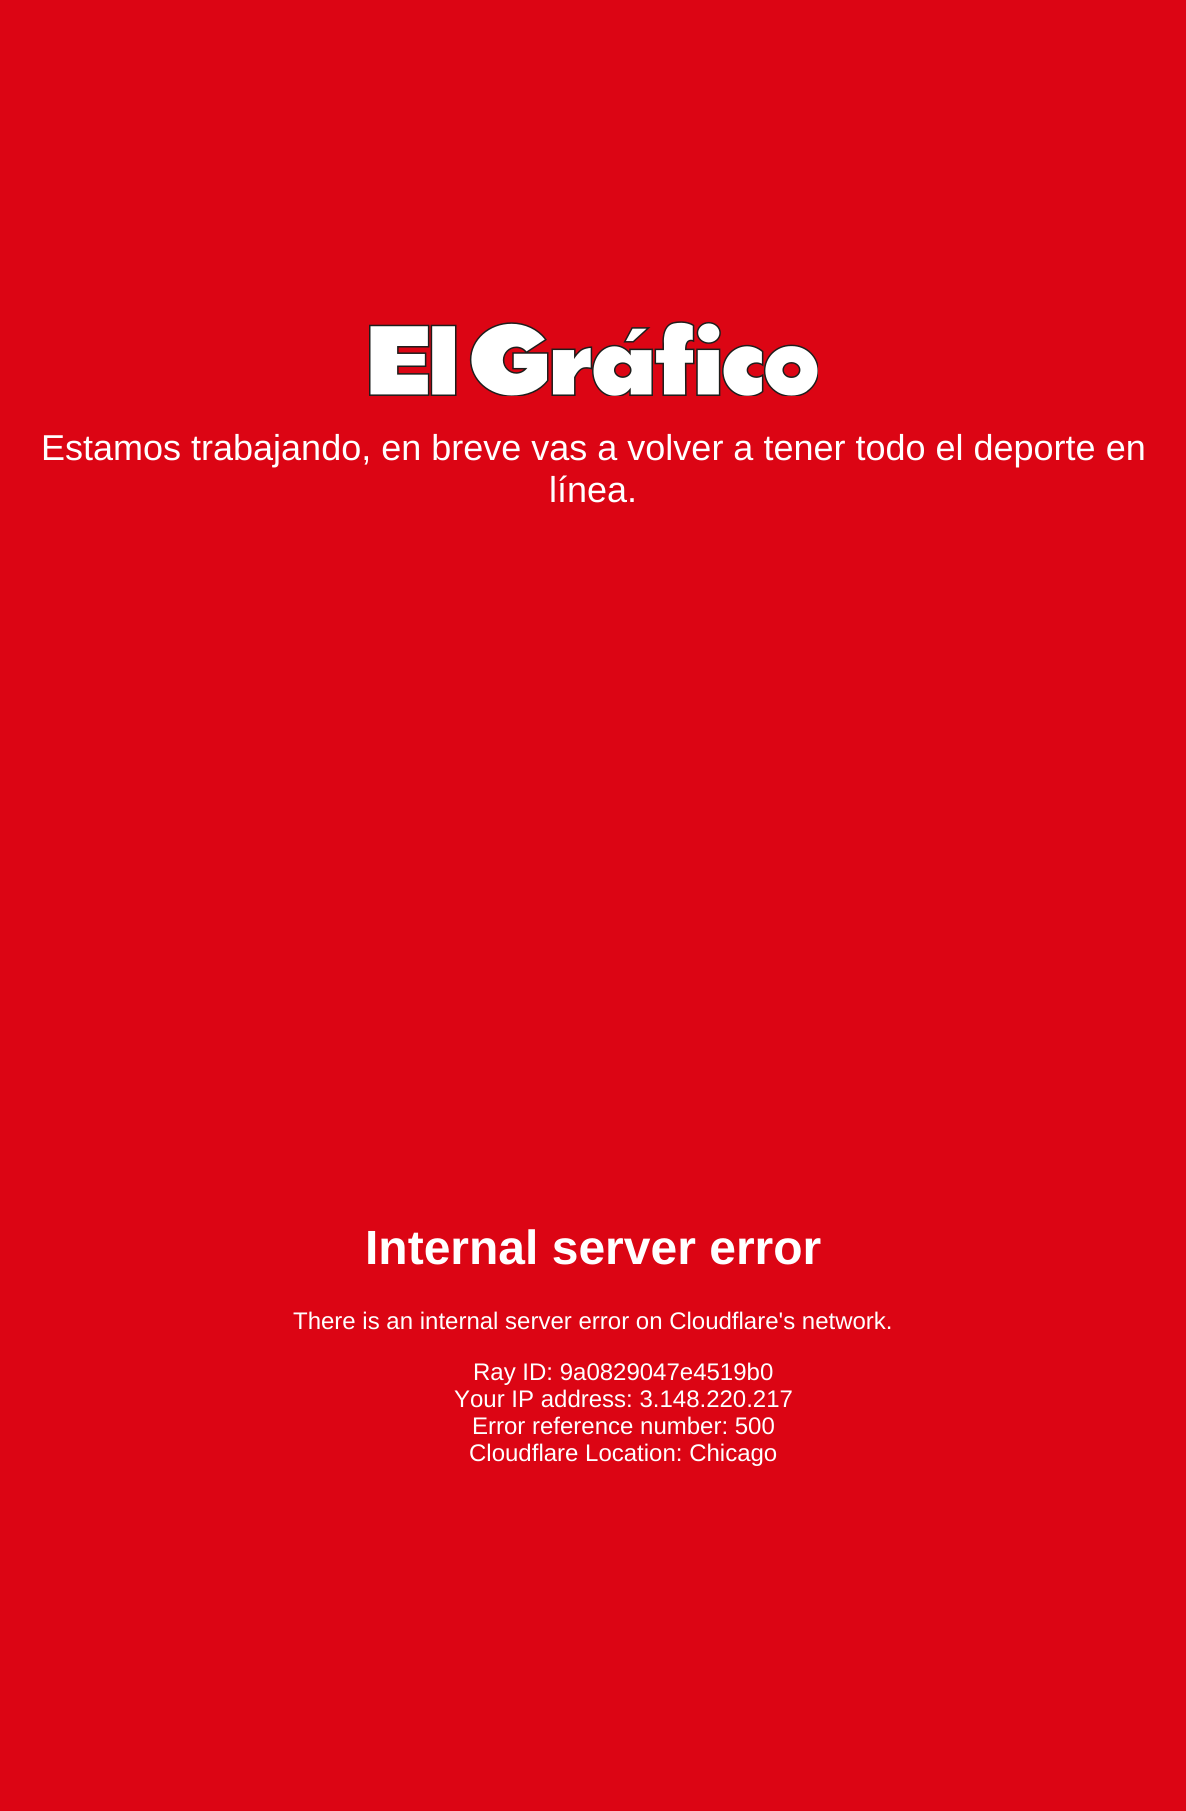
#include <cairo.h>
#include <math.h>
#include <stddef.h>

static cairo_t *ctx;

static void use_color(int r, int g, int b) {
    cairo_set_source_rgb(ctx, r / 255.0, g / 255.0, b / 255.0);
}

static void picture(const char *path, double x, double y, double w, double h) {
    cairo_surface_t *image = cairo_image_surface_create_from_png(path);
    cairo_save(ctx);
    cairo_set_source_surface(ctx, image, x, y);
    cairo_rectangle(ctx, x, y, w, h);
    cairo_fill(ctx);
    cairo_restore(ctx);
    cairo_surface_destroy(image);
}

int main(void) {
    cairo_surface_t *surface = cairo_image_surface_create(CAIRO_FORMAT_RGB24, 1186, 1811);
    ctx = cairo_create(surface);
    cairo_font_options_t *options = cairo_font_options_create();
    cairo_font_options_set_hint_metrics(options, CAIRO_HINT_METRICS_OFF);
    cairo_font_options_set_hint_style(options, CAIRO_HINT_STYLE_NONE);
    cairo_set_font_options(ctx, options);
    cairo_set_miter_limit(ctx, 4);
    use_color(220, 5, 20);
    cairo_paint(ctx);
    picture("img1.png", 369, 321, 449, 75);
    cairo_select_font_face(ctx, "Liberation Sans", CAIRO_FONT_SLANT_NORMAL, CAIRO_FONT_WEIGHT_NORMAL);
    cairo_set_font_size(ctx, 36);
    use_color(255, 255, 255);
    cairo_move_to(ctx, 41, 460);
    cairo_show_text(ctx, "Estamos trabajando, en breve vas a volver a tener todo el deporte en");
    cairo_move_to(ctx, 549, 502);
    cairo_show_text(ctx, "línea.");
    cairo_select_font_face(ctx, "Liberation Sans", CAIRO_FONT_SLANT_NORMAL, CAIRO_FONT_WEIGHT_BOLD);
    cairo_set_font_size(ctx, 48);
    cairo_move_to(ctx, 365, 1264);
    cairo_show_text(ctx, "Internal server error");
    cairo_select_font_face(ctx, "Liberation Sans", CAIRO_FONT_SLANT_NORMAL, CAIRO_FONT_WEIGHT_NORMAL);
    cairo_set_font_size(ctx, 24);
    cairo_move_to(ctx, 293, 1329);
    cairo_show_text(ctx, "There is an internal server error on Cloudflare's network.");
    cairo_move_to(ctx, 473, 1380);
    cairo_show_text(ctx, "Ray ID: 9a0829047e4519b0");
    cairo_move_to(ctx, 454, 1407);
    cairo_show_text(ctx, "Your IP address: 3.148.220.217");
    cairo_move_to(ctx, 472, 1434);
    cairo_show_text(ctx, "Error reference number: 500");
    cairo_move_to(ctx, 469, 1461);
    cairo_show_text(ctx, "Cloudflare Location: Chicago");
    cairo_surface_write_to_png(surface, "result.png");
    cairo_font_options_destroy(options);
    cairo_destroy(ctx);
    cairo_surface_destroy(surface);
    return 0;
}
